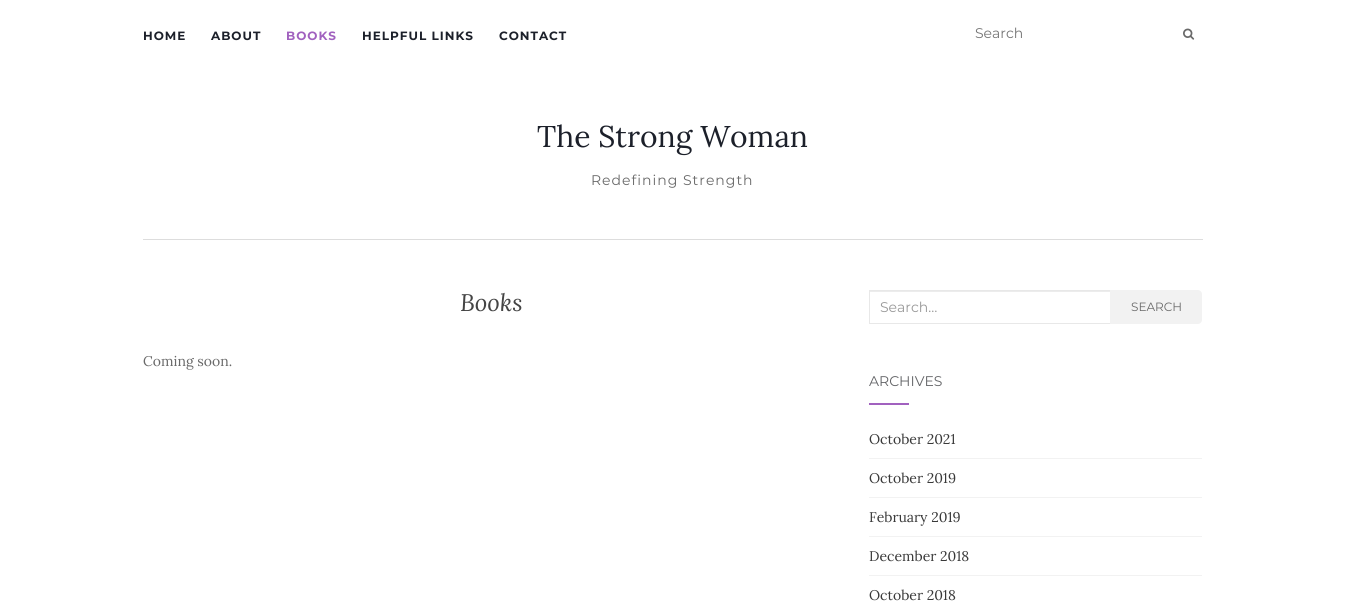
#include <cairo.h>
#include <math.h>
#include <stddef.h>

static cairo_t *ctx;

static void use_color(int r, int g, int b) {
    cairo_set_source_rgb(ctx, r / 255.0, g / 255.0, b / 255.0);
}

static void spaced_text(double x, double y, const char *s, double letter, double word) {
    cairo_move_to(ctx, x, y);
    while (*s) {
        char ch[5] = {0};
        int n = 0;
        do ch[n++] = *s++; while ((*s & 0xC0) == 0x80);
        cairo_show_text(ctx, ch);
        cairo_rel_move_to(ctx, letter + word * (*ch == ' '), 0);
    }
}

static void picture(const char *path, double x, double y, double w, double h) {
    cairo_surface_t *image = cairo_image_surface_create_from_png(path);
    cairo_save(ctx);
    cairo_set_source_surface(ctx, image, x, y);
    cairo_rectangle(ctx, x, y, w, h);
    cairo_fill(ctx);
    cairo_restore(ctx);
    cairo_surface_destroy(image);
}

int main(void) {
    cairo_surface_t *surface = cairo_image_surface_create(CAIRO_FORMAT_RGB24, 1345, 613);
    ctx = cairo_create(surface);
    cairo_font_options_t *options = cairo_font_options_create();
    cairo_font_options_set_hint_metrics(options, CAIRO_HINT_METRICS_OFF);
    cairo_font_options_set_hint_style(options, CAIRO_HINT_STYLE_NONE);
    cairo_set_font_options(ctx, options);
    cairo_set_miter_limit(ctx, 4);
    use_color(255, 255, 255);
    cairo_paint(ctx);
    cairo_select_font_face(ctx, "Montserrat", CAIRO_FONT_SLANT_NORMAL, CAIRO_FONT_WEIGHT_BOLD);
    cairo_set_font_size(ctx, 12);
    use_color(28, 32, 42);
    spaced_text(143, 40, "HOME", 1, 0);
    spaced_text(211, 40, "ABOUT", 1, 0);
    use_color(161, 97, 191);
    spaced_text(286, 40, "BOOKS", 1, 0);
    use_color(28, 32, 42);
    spaced_text(362, 40, "HELPFUL LINKS", 1, 0);
    spaced_text(499, 40, "CONTACT", 1, 0);
    cairo_select_font_face(ctx, "Montserrat", CAIRO_FONT_SLANT_NORMAL, CAIRO_FONT_WEIGHT_NORMAL);
    cairo_set_font_size(ctx, 14);
    use_color(117, 117, 117);
    cairo_move_to(ctx, 975, 38);
    cairo_show_text(ctx, "Search");
    picture("img1.png", 1183, 28, 12, 12);
    cairo_select_font_face(ctx, "Lora", CAIRO_FONT_SLANT_NORMAL, CAIRO_FONT_WEIGHT_NORMAL);
    cairo_set_font_size(ctx, 30);
    use_color(28, 32, 42);
    cairo_move_to(ctx, 537, 147);
    cairo_show_text(ctx, "The Strong Woman");
    cairo_select_font_face(ctx, "Montserrat", CAIRO_FONT_SLANT_NORMAL, CAIRO_FONT_WEIGHT_NORMAL);
    cairo_set_font_size(ctx, 14);
    use_color(105, 105, 105);
    spaced_text(591, 185, "Redefining Strength", 1, 0);
    use_color(221, 221, 221);
    cairo_rectangle(ctx, 143, 239, 1060, 1);
    cairo_fill(ctx);
    cairo_select_font_face(ctx, "Lora", CAIRO_FONT_SLANT_ITALIC, CAIRO_FONT_WEIGHT_NORMAL);
    cairo_set_font_size(ctx, 24);
    use_color(68, 68, 68);
    cairo_move_to(ctx, 460, 311);
    cairo_show_text(ctx, "Books");
    cairo_select_font_face(ctx, "Lora", CAIRO_FONT_SLANT_NORMAL, CAIRO_FONT_WEIGHT_NORMAL);
    cairo_set_font_size(ctx, 14);
    use_color(105, 105, 105);
    cairo_move_to(ctx, 143, 366);
    cairo_show_text(ctx, "Coming soon.");
    use_color(236, 236, 236);
    cairo_rectangle(ctx, 870, 291, 240, 1);
    cairo_fill(ctx);
    cairo_rectangle(ctx, 869.5, 290.5, 241, 33);
    use_color(232, 232, 232);
    cairo_set_line_width(ctx, 1);
    cairo_stroke(ctx);
    cairo_select_font_face(ctx, "Montserrat", CAIRO_FONT_SLANT_NORMAL, CAIRO_FONT_WEIGHT_NORMAL);
    use_color(153, 153, 153);
    cairo_move_to(ctx, 880, 312);
    cairo_show_text(ctx, "Search…");
    use_color(242, 242, 242);
    cairo_new_path(ctx);
    cairo_move_to(ctx, 1110, 290);
    cairo_line_to(ctx, 1198, 290);
    cairo_curve_to(ctx, 1200, 290, 1202, 292, 1202, 294);
    cairo_line_to(ctx, 1202, 320);
    cairo_curve_to(ctx, 1202, 322, 1200, 324, 1198, 324);
    cairo_line_to(ctx, 1110, 324);
    cairo_close_path(ctx);
    cairo_fill(ctx);
    cairo_set_font_size(ctx, 12);
    use_color(105, 105, 105);
    cairo_move_to(ctx, 1131, 311);
    cairo_show_text(ctx, "SEARCH");
    cairo_set_font_size(ctx, 14);
    use_color(99, 100, 103);
    cairo_move_to(ctx, 869, 386);
    cairo_show_text(ctx, "ARCHIVES");
    use_color(161, 97, 191);
    cairo_rectangle(ctx, 869, 403, 40, 2);
    cairo_fill(ctx);
    use_color(242, 242, 242);
    cairo_rectangle(ctx, 869, 458, 333, 1);
    cairo_fill(ctx);
    cairo_select_font_face(ctx, "Lora", CAIRO_FONT_SLANT_NORMAL, CAIRO_FONT_WEIGHT_NORMAL);
    use_color(57, 57, 57);
    cairo_move_to(ctx, 869, 444);
    cairo_show_text(ctx, "October 2021");
    use_color(242, 242, 242);
    cairo_rectangle(ctx, 869, 497, 333, 1);
    cairo_fill(ctx);
    use_color(57, 57, 57);
    cairo_move_to(ctx, 869, 483);
    cairo_show_text(ctx, "October 2019");
    use_color(242, 242, 242);
    cairo_rectangle(ctx, 869, 536, 333, 1);
    cairo_fill(ctx);
    use_color(57, 57, 57);
    cairo_move_to(ctx, 869, 522);
    cairo_show_text(ctx, "February 2019");
    use_color(242, 242, 242);
    cairo_rectangle(ctx, 869, 575, 333, 1);
    cairo_fill(ctx);
    use_color(57, 57, 57);
    cairo_move_to(ctx, 869, 561);
    cairo_show_text(ctx, "December 2018");
    cairo_move_to(ctx, 869, 600);
    cairo_show_text(ctx, "October 2018");
    cairo_surface_write_to_png(surface, "result.png");
    cairo_font_options_destroy(options);
    cairo_destroy(ctx);
    cairo_surface_destroy(surface);
    return 0;
}
